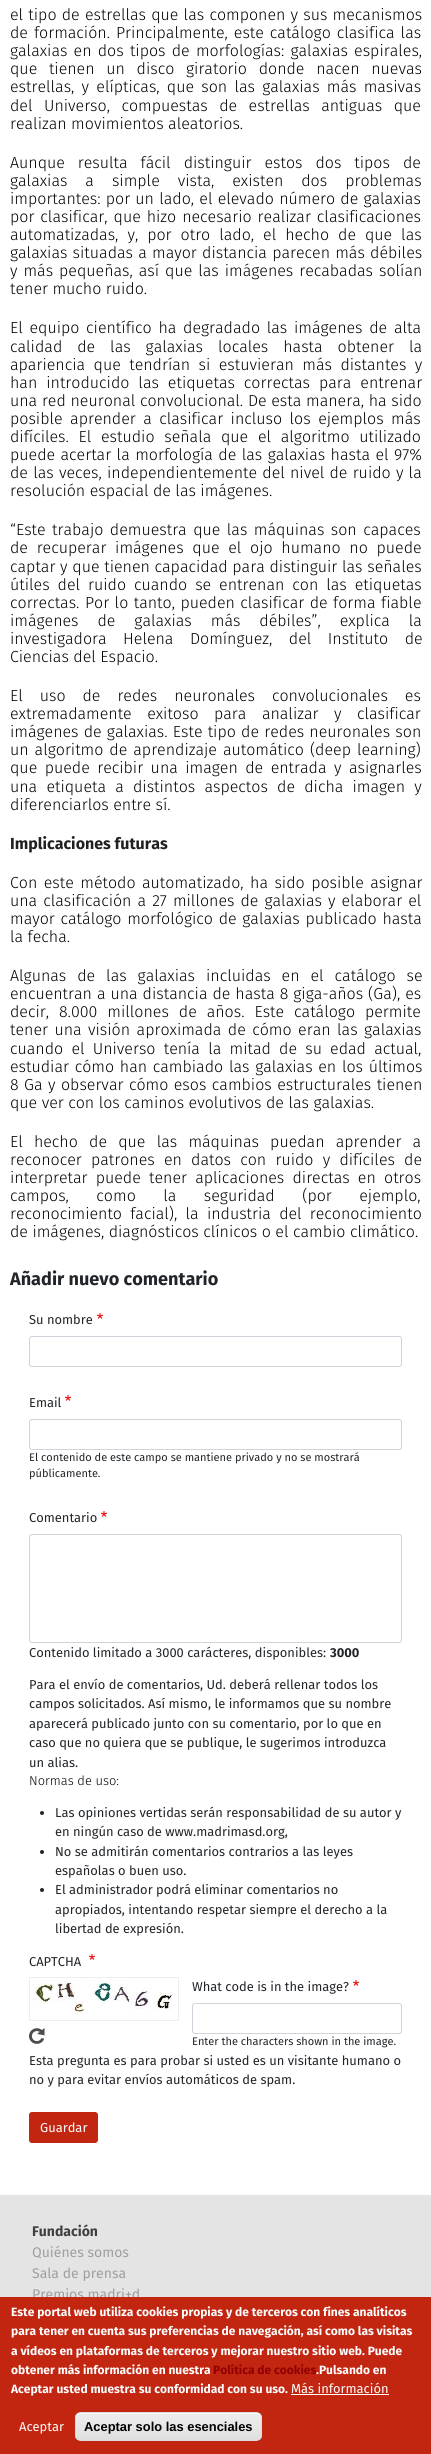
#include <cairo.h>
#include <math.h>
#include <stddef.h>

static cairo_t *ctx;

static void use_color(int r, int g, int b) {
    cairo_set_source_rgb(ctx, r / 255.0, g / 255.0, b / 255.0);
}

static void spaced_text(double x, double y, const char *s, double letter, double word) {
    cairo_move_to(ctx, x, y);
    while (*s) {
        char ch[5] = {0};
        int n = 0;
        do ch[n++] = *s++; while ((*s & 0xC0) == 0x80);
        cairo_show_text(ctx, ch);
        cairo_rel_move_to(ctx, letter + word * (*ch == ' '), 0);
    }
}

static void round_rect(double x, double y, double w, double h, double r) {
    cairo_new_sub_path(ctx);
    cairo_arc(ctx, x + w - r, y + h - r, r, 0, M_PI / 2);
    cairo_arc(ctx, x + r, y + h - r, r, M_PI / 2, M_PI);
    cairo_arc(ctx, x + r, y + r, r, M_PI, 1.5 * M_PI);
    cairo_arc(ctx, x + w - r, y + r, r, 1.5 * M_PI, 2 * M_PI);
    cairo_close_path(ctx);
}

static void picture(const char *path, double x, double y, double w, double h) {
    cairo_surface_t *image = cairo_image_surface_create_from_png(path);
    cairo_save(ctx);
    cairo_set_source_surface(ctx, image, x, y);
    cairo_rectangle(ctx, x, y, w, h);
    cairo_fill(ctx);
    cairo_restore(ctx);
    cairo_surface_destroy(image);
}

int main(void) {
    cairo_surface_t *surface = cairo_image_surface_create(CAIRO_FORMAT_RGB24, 431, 2454);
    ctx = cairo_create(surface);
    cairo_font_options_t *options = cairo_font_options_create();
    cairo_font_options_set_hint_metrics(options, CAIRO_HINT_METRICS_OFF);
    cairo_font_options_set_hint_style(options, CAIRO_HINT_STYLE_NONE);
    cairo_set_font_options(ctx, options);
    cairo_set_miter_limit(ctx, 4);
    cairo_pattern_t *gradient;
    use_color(255, 255, 255);
    cairo_paint(ctx);
    cairo_select_font_face(ctx, "Fira Sans Light", CAIRO_FONT_SLANT_NORMAL, CAIRO_FONT_WEIGHT_NORMAL);
    cairo_set_font_size(ctx, 16);
    use_color(0, 0, 0);
    spaced_text(10, 20, "el tipo de estrellas que las componen y sus mecanismos", 0, 0.75);
    spaced_text(10, 38, "de formación. Principalmente, este catálogo clasifica las", 0, 1.5);
    spaced_text(10, 56, "galaxias en dos tipos de morfologías: galaxias espirales,", 0, 1.75);
    spaced_text(10, 74, "que tienen un disco giratorio donde nacen nuevas", 0, 7.25);
    spaced_text(10, 92, "estrellas, y elípticas, que son las galaxias más masivas", 0, 2.75);
    spaced_text(10, 111, "del Universo, compuestas de estrellas antiguas que", 0, 7);
    cairo_move_to(ctx, 10, 129);
    cairo_show_text(ctx, "realizan movimientos aleatorios.");
    spaced_text(10, 168, "Aunque resulta fácil distinguir estos dos tipos de", 0, 8.5);
    spaced_text(10, 186, "galaxias a simple vista, existen dos problemas", 0, 13.5);
    spaced_text(10, 204, "importantes: por un lado, el elevado número de galaxias", 0, 0.75);
    spaced_text(10, 222, "por clasificar, que hizo necesario realizar clasificaciones", 0, 1.5);
    spaced_text(10, 240, "automatizadas, y, por otro lado, el hecho de que las", 0, 4.5);
    spaced_text(10, 258, "galaxias situadas a mayor distancia parecen más débiles", 0, 0.75);
    spaced_text(10, 276, "y más pequeñas, así que las imágenes recabadas solían", 0, 1.5);
    cairo_move_to(ctx, 10, 294);
    cairo_show_text(ctx, "tener mucho ruido.");
    spaced_text(10, 333, "El equipo científico ha degradado las imágenes de alta", 0, 2.25);
    spaced_text(10, 352, "calidad de las galaxias locales hasta obtener la", 0, 10.5);
    spaced_text(10, 370, "apariencia que tendrían si estuvieran más distantes y", 0, 4);
    spaced_text(10, 388, "han introducido las etiquetas correctas para entrenar", 0, 4.5);
    spaced_text(10, 406, "una red neuronal convolucional. De esta manera, ha sido", 0, 0.25);
    spaced_text(10, 424, "posible aprender a clasificar incluso los ejemplos más", 0, 3);
    spaced_text(10, 442, "difíciles. El estudio señala que el algoritmo utilizado", 0, 5.25);
    spaced_text(10, 460, "puede acertar la morfología de las galaxias hasta el 97%", 0, 1);
    spaced_text(10, 478, "de las veces, independientemente del nivel de ruido y la", 0, 0.75);
    cairo_move_to(ctx, 10, 496);
    cairo_show_text(ctx, "resolución espacial de las imágenes.");
    spaced_text(10, 535, "“Este trabajo demuestra que las máquinas son capaces", 0, 2);
    spaced_text(10, 553, "de recuperar imágenes que el ojo humano no puede", 0, 4.25);
    spaced_text(10, 572, "captar y que tienen capacidad para distinguir las señales", 0, 0.25);
    spaced_text(10, 590, "útiles del ruido cuando se entrenan con las etiquetas", 0, 3.5);
    spaced_text(10, 608, "correctas. Por lo tanto, pueden clasificar de forma fiable", 0, 1);
    spaced_text(10, 626, "imágenes de galaxias más débiles”, explica la", 0, 14.5);
    spaced_text(10, 644, "investigadora Helena Domínguez, del Instituto de", 0, 12);
    cairo_move_to(ctx, 10, 662);
    cairo_show_text(ctx, "Ciencias del Espacio.");
    spaced_text(10, 701, "El uso de redes neuronales convolucionales es", 0, 12.5);
    spaced_text(10, 719, "extremadamente exitoso para analizar y clasificar", 0, 11);
    spaced_text(10, 737, "imágenes de galaxias. Este tipo de redes neuronales son", 0, 0.75);
    spaced_text(10, 755, "un algoritmo de aprendizaje automático (deep learning)", 0, 1.5);
    spaced_text(10, 773, "que puede recibir una imagen de entrada y asignarles", 0, 3);
    spaced_text(10, 792, "una etiqueta a distintos aspectos de dicha imagen y", 0, 4.75);
    cairo_move_to(ctx, 10, 810);
    cairo_show_text(ctx, "diferenciarlos entre sí.");
    cairo_select_font_face(ctx, "Fira Sans", CAIRO_FONT_SLANT_NORMAL, CAIRO_FONT_WEIGHT_BOLD);
    use_color(32, 32, 32);
    cairo_move_to(ctx, 10, 849);
    cairo_show_text(ctx, "Implicaciones futuras");
    cairo_select_font_face(ctx, "Fira Sans Light", CAIRO_FONT_SLANT_NORMAL, CAIRO_FONT_WEIGHT_NORMAL);
    use_color(0, 0, 0);
    spaced_text(10, 888, "Con este método automatizado, ha sido posible asignar", 0, 2);
    spaced_text(10, 906, "una clasificación a 27 millones de galaxias y elaborar el", 0, 1.6);
    spaced_text(10, 924, "mayor catálogo morfológico de galaxias publicado hasta", 0, 1.25);
    cairo_move_to(ctx, 10, 942);
    cairo_show_text(ctx, "la fecha.");
    spaced_text(10, 981, "Algunas de las galaxias incluidas en el catálogo se", 0, 6.5);
    spaced_text(10, 999, "encuentran a una distancia de hasta 8 giga-años (Ga), es", 0, 0.5);
    spaced_text(10, 1017, "decir, 8.000 millones de años. Este catálogo permite", 0, 5.5);
    spaced_text(10, 1035, "tener una visión aproximada de cómo eran las galaxias", 0, 2);
    spaced_text(10, 1054, "cuando el Universo tenía la mitad de su edad actual,", 0, 3.75);
    spaced_text(10, 1072, "estudiar cómo han cambiado las galaxias en los últimos", 0, 1.25);
    spaced_text(10, 1090, "8 Ga y observar cómo esos cambios estructurales tienen", 0, 1);
    cairo_move_to(ctx, 10, 1108);
    cairo_show_text(ctx, "que ver con los caminos evolutivos de las galaxias.");
    spaced_text(10, 1147, "El hecho de que las máquinas puedan aprender a", 0, 6.75);
    spaced_text(10, 1165, "reconocer patrones en datos con ruido y difíciles de", 0, 4.75);
    spaced_text(10, 1183, "interpretar puede tener aplicaciones directas en otros", 0, 3.75);
    spaced_text(10, 1201, "campos, como la seguridad (por ejemplo,", 0, 23);
    spaced_text(10, 1219, "reconocimiento facial), la industria del reconocimiento", 0, 3.75);
    cairo_move_to(ctx, 10, 1237);
    cairo_show_text(ctx, "de imágenes, diagnósticos clínicos o el cambio climático.");
    cairo_select_font_face(ctx, "Fira Sans", CAIRO_FONT_SLANT_NORMAL, CAIRO_FONT_WEIGHT_BOLD);
    cairo_set_font_size(ctx, 18.1);
    use_color(33, 37, 41);
    cairo_move_to(ctx, 10, 1285);
    cairo_show_text(ctx, "Añadir nuevo comentario");
    cairo_select_font_face(ctx, "Fira Sans", CAIRO_FONT_SLANT_NORMAL, CAIRO_FONT_WEIGHT_NORMAL);
    cairo_set_font_size(ctx, 12.9);
    cairo_move_to(ctx, 29, 1324);
    cairo_show_text(ctx, "Su nombre");
    picture("img1.png", 97, 1313, 6, 6);
    round_rect(29.5, 1336.5, 372, 30, 2.5);
    use_color(206, 212, 218);
    cairo_set_line_width(ctx, 1);
    cairo_stroke(ctx);
    use_color(33, 37, 41);
    cairo_move_to(ctx, 29, 1407);
    cairo_show_text(ctx, "Email");
    picture("img1.png", 65, 1395, 6, 6);
    round_rect(29.5, 1419.5, 372, 30, 2.5);
    use_color(206, 212, 218);
    cairo_stroke(ctx);
    cairo_set_font_size(ctx, 11);
    use_color(33, 37, 41);
    cairo_move_to(ctx, 29, 1461);
    cairo_show_text(ctx, "El contenido de este campo se mantiene privado y no se mostrará");
    cairo_move_to(ctx, 29, 1477);
    cairo_show_text(ctx, "públicamente.");
    cairo_set_font_size(ctx, 12.9);
    cairo_move_to(ctx, 29, 1522);
    cairo_show_text(ctx, "Comentario");
    picture("img1.png", 101, 1511, 6, 6);
    round_rect(29.5, 1534.5, 372, 108, 2.5);
    use_color(206, 212, 218);
    cairo_stroke(ctx);
    use_color(33, 37, 41);
    cairo_move_to(ctx, 29, 1657);
    cairo_show_text(ctx, "Contenido limitado a 3000 carácteres, disponibles:");
    cairo_select_font_face(ctx, "Fira Sans", CAIRO_FONT_SLANT_NORMAL, CAIRO_FONT_WEIGHT_BOLD);
    cairo_move_to(ctx, 330, 1657);
    cairo_show_text(ctx, "3000");
    cairo_select_font_face(ctx, "Fira Sans", CAIRO_FONT_SLANT_NORMAL, CAIRO_FONT_WEIGHT_NORMAL);
    cairo_move_to(ctx, 29, 1689);
    cairo_show_text(ctx, "Para el envío de comentarios, Ud. deberá rellenar todos los");
    cairo_move_to(ctx, 29, 1708);
    cairo_show_text(ctx, "campos solicitados. Así mismo, le informamos que su nombre");
    cairo_move_to(ctx, 29, 1728);
    cairo_show_text(ctx, "aparecerá publicado junto con su comentario, por lo que en");
    cairo_move_to(ctx, 29, 1747);
    cairo_show_text(ctx, "caso que no quiera que se publique, le sugerimos introduzca");
    cairo_move_to(ctx, 29, 1767);
    cairo_show_text(ctx, "un alias.");
    cairo_select_font_face(ctx, "Fira Sans Light", CAIRO_FONT_SLANT_NORMAL, CAIRO_FONT_WEIGHT_NORMAL);
    use_color(0, 0, 0);
    cairo_move_to(ctx, 29, 1785);
    cairo_show_text(ctx, "Normas de uso:");
    use_color(33, 37, 41);
    cairo_new_path(ctx);
    cairo_arc(ctx, 42, 1813, 2, 0, 2 * M_PI);
    cairo_fill(ctx);
    cairo_select_font_face(ctx, "Fira Sans", CAIRO_FONT_SLANT_NORMAL, CAIRO_FONT_WEIGHT_NORMAL);
    cairo_move_to(ctx, 55, 1817);
    cairo_show_text(ctx, "Las opiniones vertidas serán responsabilidad de su autor y");
    cairo_move_to(ctx, 55, 1836);
    cairo_show_text(ctx, "en ningún caso de www.madrimasd.org,");
    cairo_new_path(ctx);
    cairo_arc(ctx, 42, 1852, 2, 0, 2 * M_PI);
    cairo_fill(ctx);
    cairo_move_to(ctx, 55, 1856);
    cairo_show_text(ctx, "No se admitirán comentarios contrarios a las leyes");
    cairo_move_to(ctx, 55, 1875);
    cairo_show_text(ctx, "españolas o buen uso.");
    cairo_new_path(ctx);
    cairo_arc(ctx, 42, 1890, 2, 0, 2 * M_PI);
    cairo_fill(ctx);
    cairo_move_to(ctx, 55, 1894);
    cairo_show_text(ctx, "El administrador podrá eliminar comentarios no");
    cairo_move_to(ctx, 55, 1914);
    cairo_show_text(ctx, "apropiados, intentando respetar siempre el derecho a la");
    cairo_move_to(ctx, 55, 1933);
    cairo_show_text(ctx, "libertad de expresión.");
    cairo_move_to(ctx, 29, 1966);
    cairo_show_text(ctx, "CAPTCHA");
    picture("img1.png", 89, 1954, 6, 6);
    cairo_rectangle(ctx, 29.5, 1977.5, 149, 43);
    use_color(238, 238, 238);
    cairo_stroke(ctx);
    picture("img2.png", 35, 1983, 137, 31);
    picture("img3.png", 29, 2028, 16, 16);
    use_color(33, 37, 41);
    cairo_move_to(ctx, 192, 1991);
    cairo_show_text(ctx, "What code is in the image?");
    picture("img1.png", 353, 1980, 6, 6);
    round_rect(192.5, 2003.5, 209, 30, 2.5);
    use_color(206, 212, 218);
    cairo_stroke(ctx);
    cairo_set_font_size(ctx, 11);
    use_color(33, 37, 41);
    cairo_move_to(ctx, 192, 2045);
    cairo_show_text(ctx, "Enter the characters shown in the image.");
    cairo_set_font_size(ctx, 12.9);
    cairo_move_to(ctx, 29, 2065);
    cairo_show_text(ctx, "Esta pregunta es para probar si usted es un visitante humano o");
    cairo_move_to(ctx, 29, 2084);
    cairo_show_text(ctx, "no y para evitar envíos automáticos de spam.");
    use_color(194, 38, 17);
    round_rect(29.5, 2112.5, 68, 30, 2.5);
    cairo_fill_preserve(ctx);
    cairo_stroke(ctx);
    use_color(254, 254, 254);
    cairo_move_to(ctx, 40, 2132);
    cairo_show_text(ctx, "Guardar");
    use_color(228, 228, 228);
    cairo_rectangle(ctx, 0, 2195, 431, 102);
    cairo_fill(ctx);
    cairo_select_font_face(ctx, "Fira Sans", CAIRO_FONT_SLANT_NORMAL, CAIRO_FONT_WEIGHT_BOLD);
    cairo_set_font_size(ctx, 14);
    use_color(64, 64, 64);
    cairo_move_to(ctx, 32, 2236);
    cairo_show_text(ctx, "Fundación");
    cairo_select_font_face(ctx, "Fira Sans", CAIRO_FONT_SLANT_NORMAL, CAIRO_FONT_WEIGHT_NORMAL);
    use_color(159, 159, 159);
    cairo_move_to(ctx, 32, 2257);
    cairo_show_text(ctx, "Quiénes somos");
    cairo_move_to(ctx, 32, 2278);
    cairo_show_text(ctx, "Sala de prensa");
    cairo_move_to(ctx, 32, 2299);
    cairo_show_text(ctx, "Premios madri+d");
    use_color(194, 38, 17);
    cairo_rectangle(ctx, 0, 2297, 431, 157);
    cairo_fill(ctx);
    cairo_select_font_face(ctx, "Fira Sans", CAIRO_FONT_SLANT_NORMAL, CAIRO_FONT_WEIGHT_BOLD);
    cairo_set_font_size(ctx, 12);
    use_color(254, 254, 254);
    cairo_move_to(ctx, 11, 2316);
    cairo_show_text(ctx, "Este portal web utiliza cookies propias y de terceros con fines analíticos");
    cairo_move_to(ctx, 11, 2335);
    cairo_show_text(ctx, "para tener en cuenta sus preferencias de navegación, así como las visitas");
    cairo_move_to(ctx, 11, 2355);
    cairo_show_text(ctx, "a vídeos en plataformas de terceros y mejorar nuestro sitio web. Puede");
    cairo_move_to(ctx, 11, 2374);
    cairo_show_text(ctx, "obtener más información en nuestra");
    use_color(144, 0, 0);
    cairo_move_to(ctx, 213, 2374);
    cairo_show_text(ctx, "Política de cookies");
    use_color(254, 254, 254);
    cairo_move_to(ctx, 316, 2374);
    cairo_show_text(ctx, ".Pulsando en");
    cairo_move_to(ctx, 11, 2393);
    cairo_show_text(ctx, "Aceptar usted muestra su conformidad con su uso.");
    cairo_select_font_face(ctx, "Fira Sans", CAIRO_FONT_SLANT_NORMAL, CAIRO_FONT_WEIGHT_NORMAL);
    cairo_set_font_size(ctx, 12.9);
    cairo_move_to(ctx, 291, 2393);
    cairo_show_text(ctx, "Más información");
    use_color(255, 255, 255);
    cairo_rectangle(ctx, 291, 2394, 98, 1);
    cairo_fill(ctx);
    use_color(254, 254, 254);
    cairo_move_to(ctx, 19, 2431);
    cairo_show_text(ctx, "Aceptar");
    cairo_save(ctx);
    round_rect(75, 2412, 187, 29, 6);
    cairo_clip(ctx);
    gradient = cairo_pattern_create_linear(169, 2413, 169, 2440);
    cairo_pattern_add_color_stop_rgba(gradient, 0.05, 0.929, 0.929, 0.929, 1);
    cairo_pattern_add_color_stop_rgba(gradient, 1, 0.875, 0.875, 0.875, 1);
    cairo_set_source(ctx, gradient);
    cairo_pattern_destroy(gradient);
    cairo_rectangle(ctx, 75, 2413, 187, 27);
    cairo_fill(ctx);
    cairo_restore(ctx);
    use_color(255, 255, 255);
    cairo_new_path(ctx);
    cairo_move_to(ctx, 81, 2414);
    cairo_line_to(ctx, 256, 2414);
    cairo_curve_to(ctx, 259, 2414, 261, 2416, 261, 2419);
    cairo_curve_to(ctx, 261, 2416, 260, 2414, 257, 2413);
    cairo_line_to(ctx, 80, 2413);
    cairo_curve_to(ctx, 77, 2414, 76, 2416, 76, 2419);
    cairo_curve_to(ctx, 76, 2416, 78, 2414, 81, 2414);
    cairo_close_path(ctx);
    cairo_fill(ctx);
    round_rect(75.5, 2412.5, 186, 28, 5.5);
    use_color(220, 220, 220);
    cairo_stroke(ctx);
    cairo_select_font_face(ctx, "Liberation Sans", CAIRO_FONT_SLANT_NORMAL, CAIRO_FONT_WEIGHT_BOLD);
    use_color(0, 0, 0);
    cairo_move_to(ctx, 84, 2431);
    cairo_show_text(ctx, "Aceptar solo las esenciales");
    cairo_surface_write_to_png(surface, "result.png");
    cairo_font_options_destroy(options);
    cairo_destroy(ctx);
    cairo_surface_destroy(surface);
    return 0;
}
